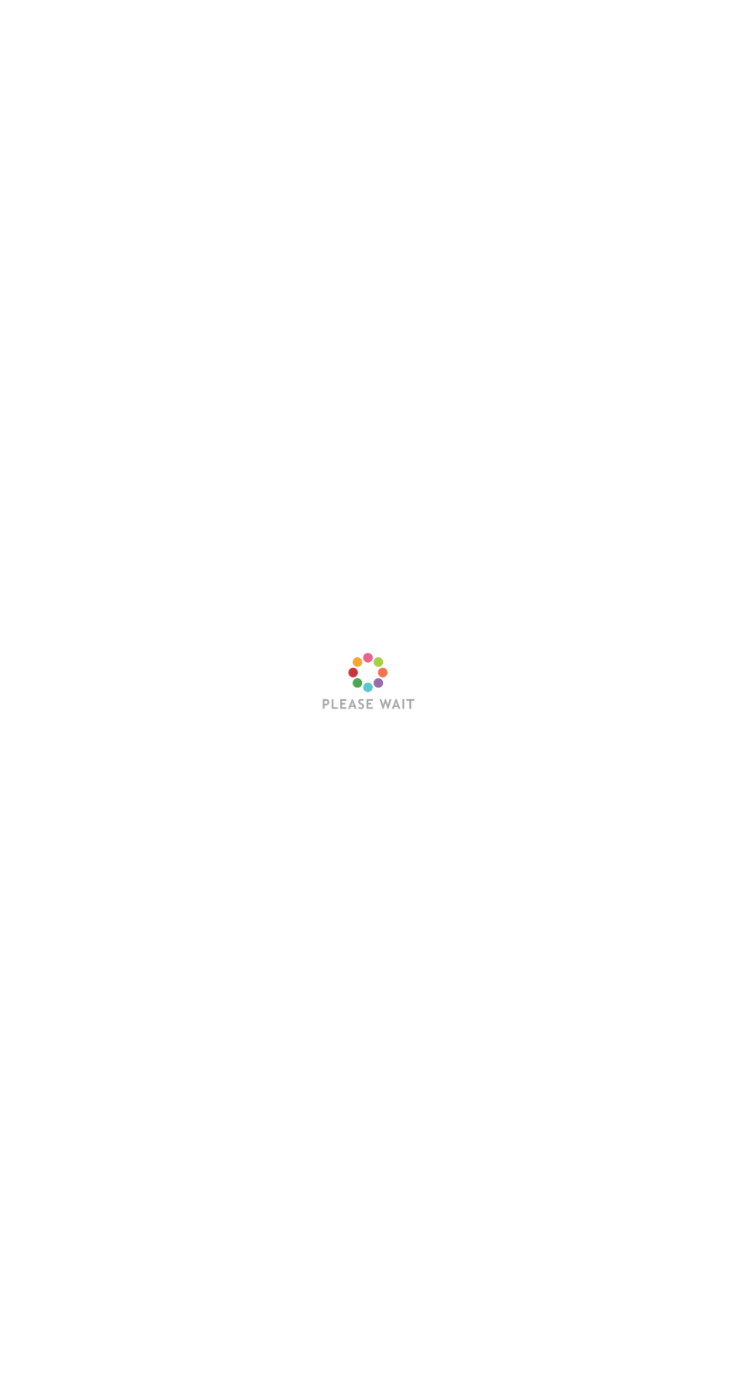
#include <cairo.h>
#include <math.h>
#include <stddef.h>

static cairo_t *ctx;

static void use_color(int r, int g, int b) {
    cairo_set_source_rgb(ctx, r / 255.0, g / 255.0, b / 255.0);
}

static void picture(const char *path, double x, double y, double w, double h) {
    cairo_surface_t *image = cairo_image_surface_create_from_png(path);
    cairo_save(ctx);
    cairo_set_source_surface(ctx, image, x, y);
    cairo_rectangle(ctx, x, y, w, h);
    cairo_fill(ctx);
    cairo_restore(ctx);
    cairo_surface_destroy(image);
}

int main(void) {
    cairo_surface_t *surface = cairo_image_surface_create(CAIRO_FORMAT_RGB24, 733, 1374);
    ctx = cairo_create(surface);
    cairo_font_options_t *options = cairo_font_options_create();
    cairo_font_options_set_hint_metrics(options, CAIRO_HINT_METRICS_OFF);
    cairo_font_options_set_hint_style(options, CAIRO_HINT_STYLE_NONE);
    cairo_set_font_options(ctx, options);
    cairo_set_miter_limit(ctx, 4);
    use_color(255, 255, 255);
    cairo_paint(ctx);
    picture("img1.png", 322, 652, 93, 58);
    cairo_surface_write_to_png(surface, "result.png");
    cairo_font_options_destroy(options);
    cairo_destroy(ctx);
    cairo_surface_destroy(surface);
    return 0;
}
